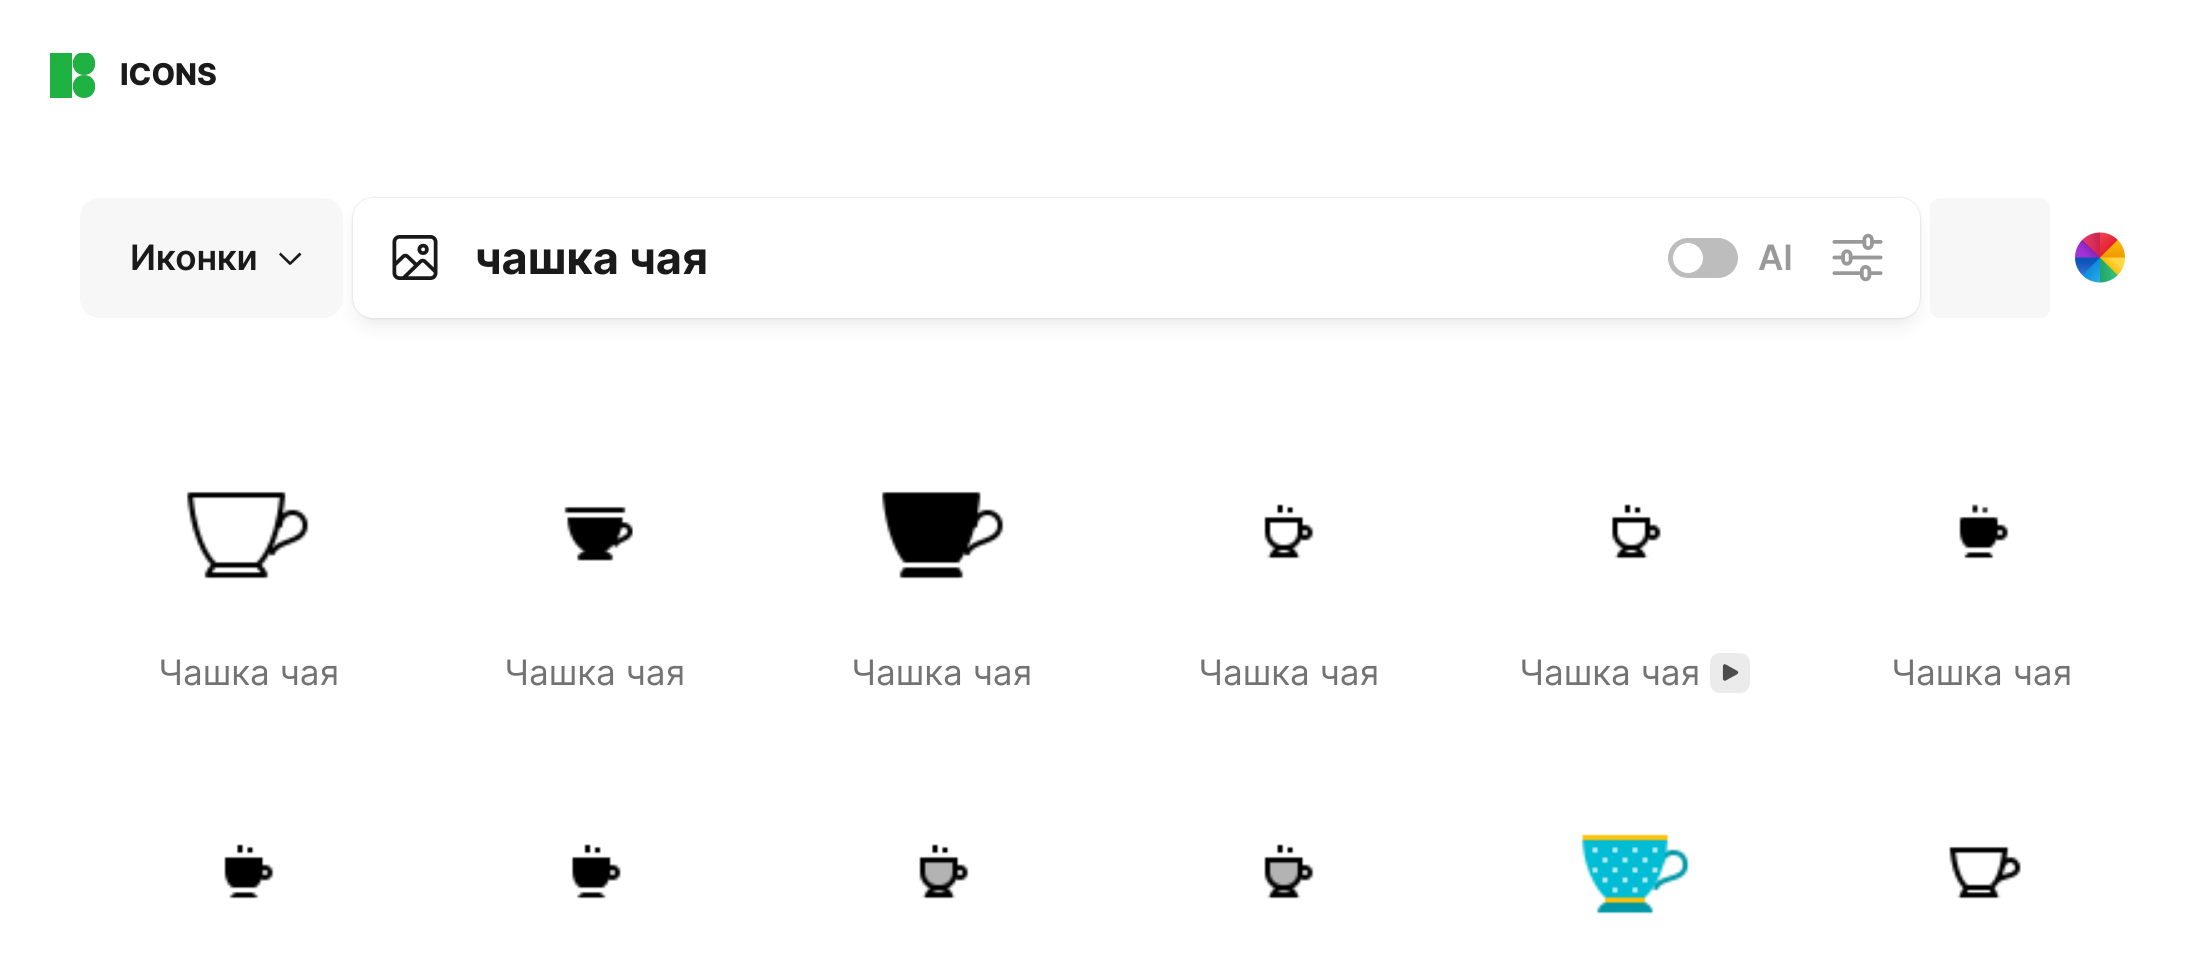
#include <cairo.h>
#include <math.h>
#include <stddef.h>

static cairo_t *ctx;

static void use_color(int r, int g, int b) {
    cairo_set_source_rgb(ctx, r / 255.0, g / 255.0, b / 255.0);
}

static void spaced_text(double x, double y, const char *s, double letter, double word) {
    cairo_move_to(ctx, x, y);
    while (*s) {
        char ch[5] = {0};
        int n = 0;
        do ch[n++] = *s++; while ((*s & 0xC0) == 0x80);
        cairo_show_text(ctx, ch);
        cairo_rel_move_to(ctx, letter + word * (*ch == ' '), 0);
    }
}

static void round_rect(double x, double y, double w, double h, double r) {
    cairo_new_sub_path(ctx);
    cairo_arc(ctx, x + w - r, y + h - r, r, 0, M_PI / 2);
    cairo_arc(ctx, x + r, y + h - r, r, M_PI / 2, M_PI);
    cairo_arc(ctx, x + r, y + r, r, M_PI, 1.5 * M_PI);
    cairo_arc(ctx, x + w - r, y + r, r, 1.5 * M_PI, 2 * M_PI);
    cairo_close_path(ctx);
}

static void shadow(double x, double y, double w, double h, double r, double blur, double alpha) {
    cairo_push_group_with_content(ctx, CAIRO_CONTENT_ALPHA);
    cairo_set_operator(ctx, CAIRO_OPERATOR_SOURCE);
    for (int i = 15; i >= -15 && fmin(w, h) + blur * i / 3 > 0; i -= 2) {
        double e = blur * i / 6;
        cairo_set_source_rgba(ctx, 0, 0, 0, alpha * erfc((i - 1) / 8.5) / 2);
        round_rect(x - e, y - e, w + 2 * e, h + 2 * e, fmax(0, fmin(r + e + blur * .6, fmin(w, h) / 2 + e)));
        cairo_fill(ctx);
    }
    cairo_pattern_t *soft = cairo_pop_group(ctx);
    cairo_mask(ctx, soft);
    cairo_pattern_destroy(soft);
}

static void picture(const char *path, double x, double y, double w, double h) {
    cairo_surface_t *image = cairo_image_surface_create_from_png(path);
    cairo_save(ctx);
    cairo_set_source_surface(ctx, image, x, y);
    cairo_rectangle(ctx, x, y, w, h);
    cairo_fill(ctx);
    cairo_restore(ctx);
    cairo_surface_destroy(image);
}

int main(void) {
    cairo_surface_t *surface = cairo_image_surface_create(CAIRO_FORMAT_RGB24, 2203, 973);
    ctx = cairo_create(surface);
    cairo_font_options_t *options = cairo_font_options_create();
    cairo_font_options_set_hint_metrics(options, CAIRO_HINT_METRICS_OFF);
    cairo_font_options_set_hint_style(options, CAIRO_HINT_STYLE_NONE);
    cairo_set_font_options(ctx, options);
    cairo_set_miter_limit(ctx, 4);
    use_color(255, 255, 255);
    cairo_paint(ctx);
    use_color(31, 177, 65);
    cairo_rectangle(ctx, 50, 53, 22, 45);
    cairo_fill(ctx);
    cairo_save(ctx);
    cairo_rectangle(ctx, 50, 53, 45, 45);
    cairo_clip(ctx);
    cairo_new_path(ctx);
    cairo_move_to(ctx, 84, 75);
    cairo_curve_to(ctx, 99, 75, 99, 52, 84, 52);
    cairo_curve_to(ctx, 69, 52, 69, 75, 84, 75);
    cairo_close_path(ctx);
    cairo_move_to(ctx, 84, 98);
    cairo_curve_to(ctx, 99, 98, 99, 75, 84, 75);
    cairo_curve_to(ctx, 69, 75, 69, 98, 84, 98);
    cairo_close_path(ctx);
    cairo_fill(ctx);
    cairo_restore(ctx);
    cairo_select_font_face(ctx, "Inter ExtraBold", CAIRO_FONT_SLANT_NORMAL, CAIRO_FONT_WEIGHT_NORMAL);
    cairo_set_font_size(ctx, 30);
    use_color(26, 26, 26);
    cairo_move_to(ctx, 120, 85);
    cairo_show_text(ctx, "ICONS");
    use_color(247, 247, 247);
    round_rect(1930, 198, 120, 120, 10);
    cairo_fill(ctx);
    use_color(96, 96, 96);
    shadow(358, 213, 1557, 110, 15, 10, 0.15);
    use_color(247, 247, 247);
    round_rect(80, 198, 263, 120, 20);
    cairo_fill(ctx);
    cairo_select_font_face(ctx, "Inter SemiBold", CAIRO_FONT_SLANT_NORMAL, CAIRO_FONT_WEIGHT_NORMAL);
    cairo_set_font_size(ctx, 35);
    use_color(26, 26, 26);
    spaced_text(130, 270, "Иконки", -0.25, 0);
    cairo_new_path(ctx);
    cairo_move_to(ctx, 280.5, 252.5);
    cairo_line_to(ctx, 291.5, 263);
    cairo_line_to(ctx, 289.5, 265);
    cairo_line_to(ctx, 279, 254.5);
    cairo_close_path(ctx);
    cairo_fill(ctx);
    cairo_new_path(ctx);
    cairo_move_to(ctx, 289, 263);
    cairo_line_to(ctx, 299.5, 252.5);
    cairo_line_to(ctx, 301.5, 254.5);
    cairo_line_to(ctx, 290.5, 265);
    cairo_close_path(ctx);
    cairo_fill(ctx);
    use_color(96, 96, 96);
    shadow(353, 198, 1567, 120, 20, 1, 0.31);
    use_color(255, 255, 255);
    round_rect(353, 198, 1567, 120, 20);
    cairo_fill(ctx);
    picture("img1.png", 392, 235, 46, 45);
    cairo_select_font_face(ctx, "Inter", CAIRO_FONT_SLANT_NORMAL, CAIRO_FONT_WEIGHT_BOLD);
    cairo_set_font_size(ctx, 45);
    use_color(26, 26, 26);
    cairo_move_to(ctx, 475, 274);
    cairo_show_text(ctx, "чашка чая");
    use_color(189, 189, 189);
    round_rect(1668, 238, 70, 40, 20);
    cairo_fill(ctx);
    use_color(255, 255, 255);
    cairo_arc(ctx, 1688, 258, 15, 0, 2 * M_PI);
    cairo_fill(ctx);
    cairo_select_font_face(ctx, "Inter SemiBold", CAIRO_FONT_SLANT_NORMAL, CAIRO_FONT_WEIGHT_NORMAL);
    cairo_set_font_size(ctx, 35);
    use_color(153, 153, 153);
    cairo_move_to(ctx, 1758, 270);
    cairo_show_text(ctx, "AI");
    picture("img2.png", 1832, 233, 51, 49);
    picture("img3.png", 2075, 232, 50, 51);
    picture("img4.png", 186, 491, 123, 88);
    cairo_select_font_face(ctx, "Inter", CAIRO_FONT_SLANT_NORMAL, CAIRO_FONT_WEIGHT_NORMAL);
    use_color(115, 115, 115);
    cairo_move_to(ctx, 158, 685);
    cairo_show_text(ctx, "Чашка чая");
    picture("img5.png", 564, 506, 69, 55);
    cairo_move_to(ctx, 504, 685);
    cairo_show_text(ctx, "Чашка чая");
    picture("img6.png", 881, 491, 123, 88);
    cairo_move_to(ctx, 851, 685);
    cairo_show_text(ctx, "Чашка чая");
    picture("img7.png", 1264, 504, 50, 55);
    cairo_move_to(ctx, 1198, 685);
    cairo_show_text(ctx, "Чашка чая");
    picture("img8.png", 1611, 504, 50, 55);
    cairo_move_to(ctx, 1519, 685);
    cairo_show_text(ctx, "Чашка чая");
    use_color(235, 235, 235);
    round_rect(1710, 653, 40, 40, 10);
    cairo_fill(ctx);
    picture("img9.png", 1722, 664, 17, 17);
    picture("img10.png", 1959, 504, 50, 55);
    use_color(115, 115, 115);
    cairo_move_to(ctx, 1891, 685);
    cairo_show_text(ctx, "Чашка чая");
    picture("img11.png", 224, 844, 50, 55);
    picture("img12.png", 571, 844, 50, 55);
    picture("img13.png", 919, 844, 50, 55);
    picture("img14.png", 1264, 844, 50, 55);
    picture("img15.png", 1581, 834, 109, 80);
    picture("img16.png", 1948, 846, 73, 53);
    cairo_surface_write_to_png(surface, "result.png");
    cairo_font_options_destroy(options);
    cairo_destroy(ctx);
    cairo_surface_destroy(surface);
    return 0;
}
